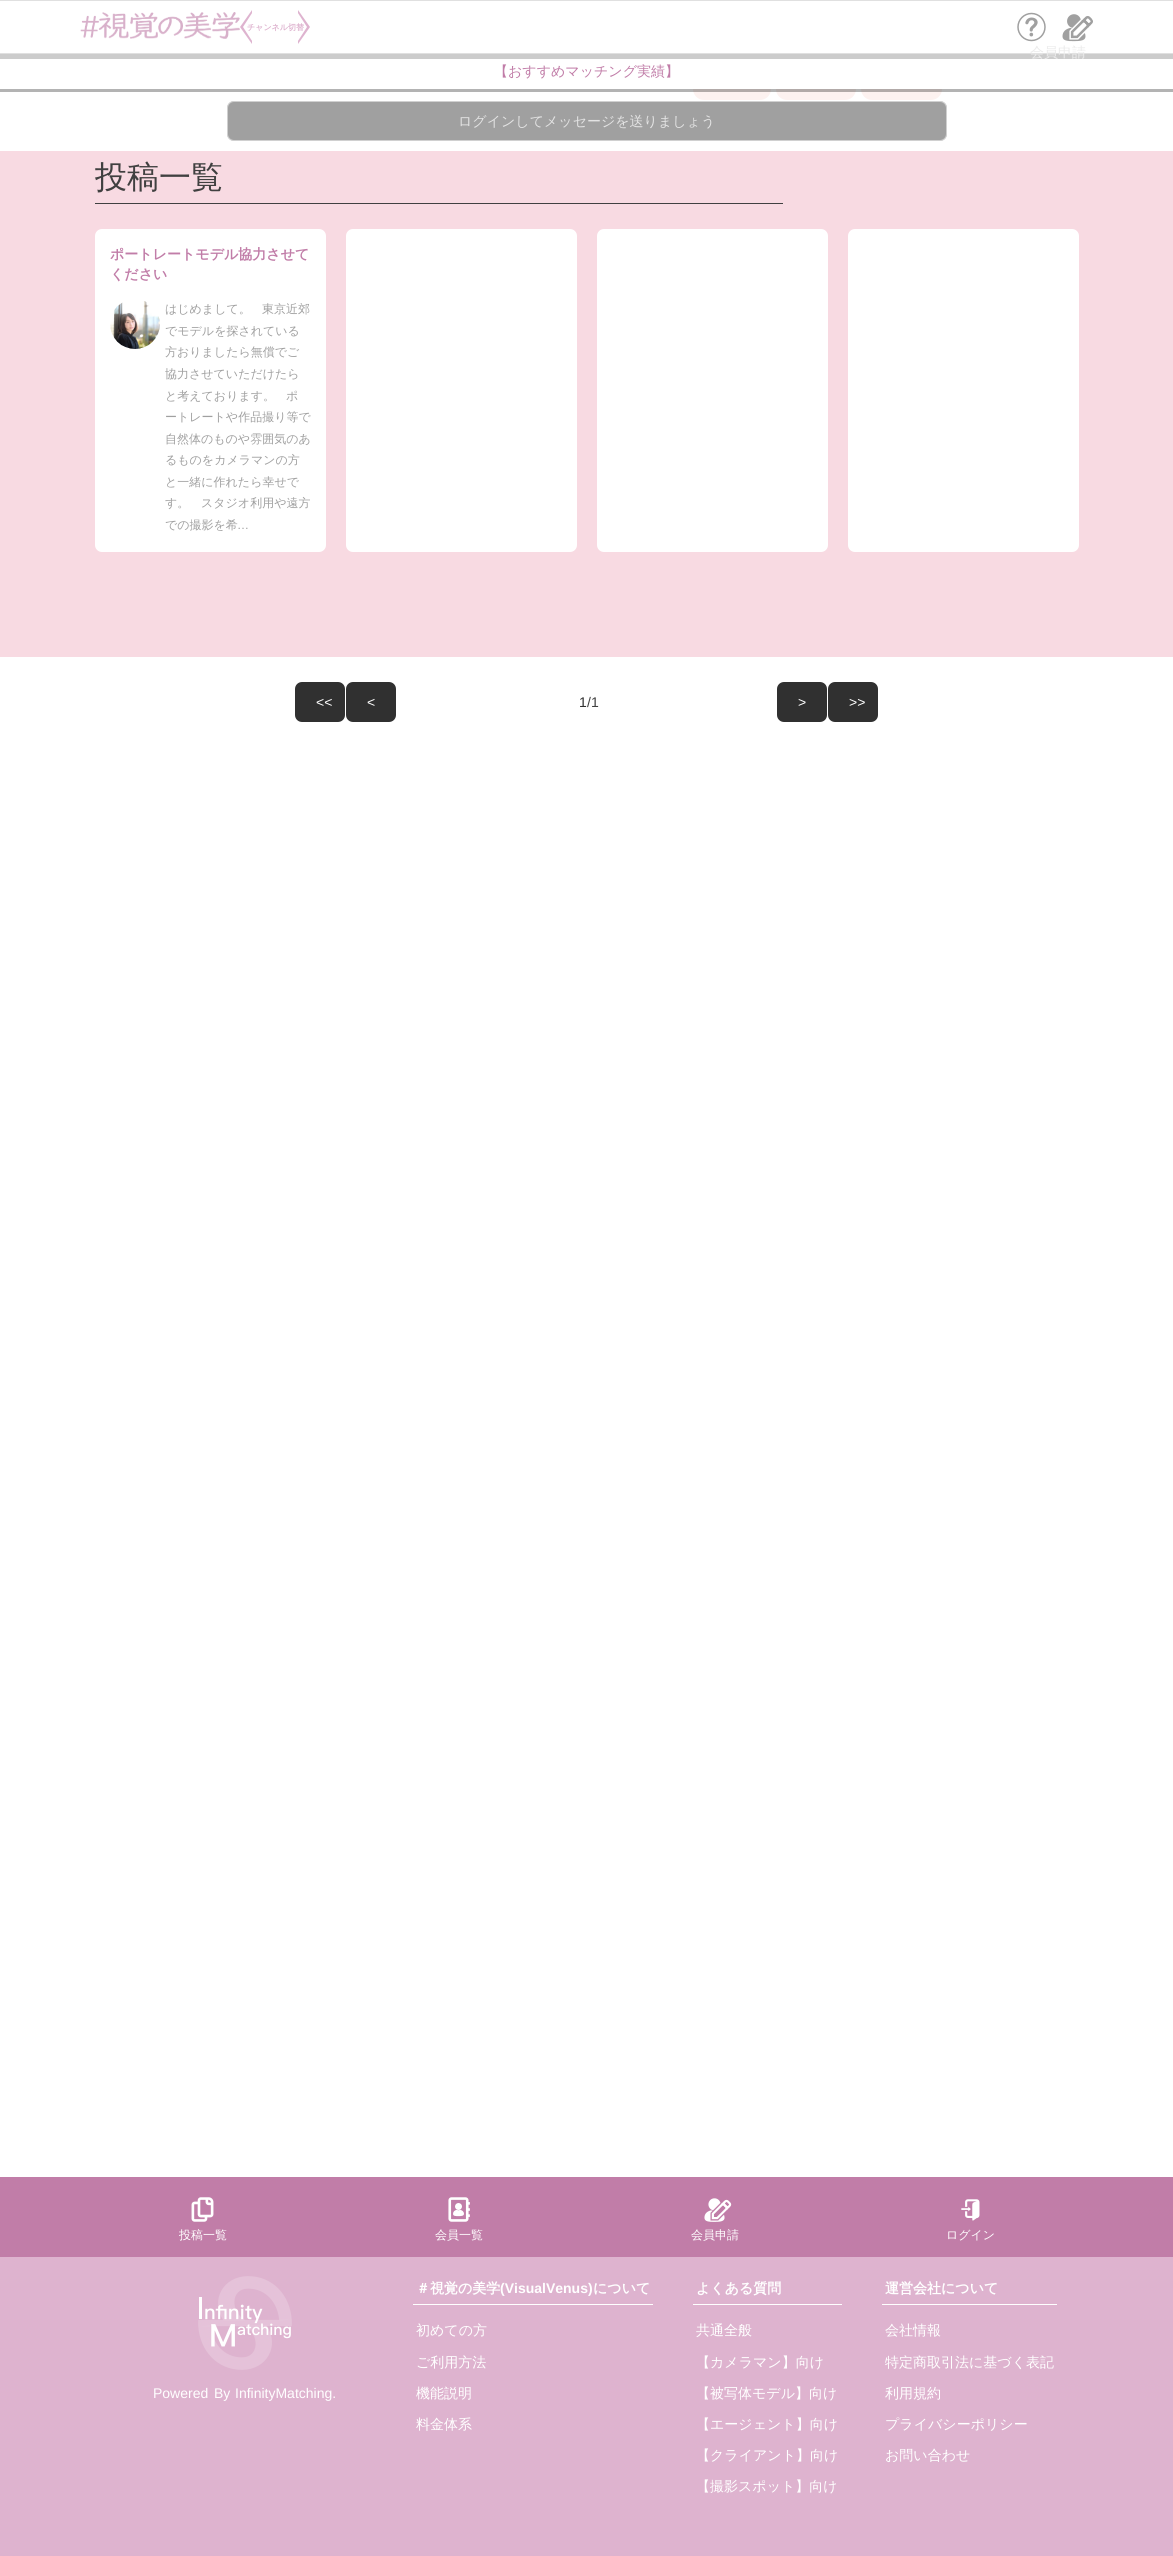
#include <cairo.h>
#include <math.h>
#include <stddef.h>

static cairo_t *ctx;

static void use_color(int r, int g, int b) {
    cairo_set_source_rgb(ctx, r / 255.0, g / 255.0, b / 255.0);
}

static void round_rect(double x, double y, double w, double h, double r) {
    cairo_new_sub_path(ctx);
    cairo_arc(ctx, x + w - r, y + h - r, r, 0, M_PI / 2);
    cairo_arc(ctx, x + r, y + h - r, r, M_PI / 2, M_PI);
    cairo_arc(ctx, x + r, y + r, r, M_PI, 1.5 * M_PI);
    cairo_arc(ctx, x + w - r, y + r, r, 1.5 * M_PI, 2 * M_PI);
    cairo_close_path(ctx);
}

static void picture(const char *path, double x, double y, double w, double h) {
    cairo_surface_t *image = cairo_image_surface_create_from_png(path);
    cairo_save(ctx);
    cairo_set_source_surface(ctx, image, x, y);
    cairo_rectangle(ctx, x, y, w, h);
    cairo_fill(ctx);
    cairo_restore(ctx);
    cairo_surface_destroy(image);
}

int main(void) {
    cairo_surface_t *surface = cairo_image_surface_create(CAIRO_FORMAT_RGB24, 1173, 2556);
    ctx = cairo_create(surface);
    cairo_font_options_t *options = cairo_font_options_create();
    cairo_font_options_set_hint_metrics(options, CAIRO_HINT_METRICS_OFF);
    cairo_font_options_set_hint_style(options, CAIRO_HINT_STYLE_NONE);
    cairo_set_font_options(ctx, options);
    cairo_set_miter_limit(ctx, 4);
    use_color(255, 255, 255);
    cairo_paint(ctx);
    use_color(204, 204, 204);
    cairo_new_path(ctx);
    cairo_move_to(ctx, -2, 1);
    cairo_line_to(ctx, -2, 59);
    cairo_line_to(ctx, 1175, 59);
    cairo_line_to(ctx, 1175, 1);
    cairo_line_to(ctx, 1173, 1);
    cairo_line_to(ctx, 1173, 54);
    cairo_line_to(ctx, 0, 54);
    cairo_line_to(ctx, 0, 1);
    cairo_close_path(ctx);
    cairo_fill(ctx);
    use_color(224, 224, 224);
    cairo_rectangle(ctx, 0, 0, 1173, 1);
    cairo_fill(ctx);
    cairo_rectangle(ctx, 0, 53, 1173, 1);
    cairo_fill(ctx);
    picture("img1.png", 80, 12, 160, 27);
    use_color(222, 179, 207);
    cairo_new_path(ctx);
    cairo_move_to(ctx, 240, 27);
    cairo_line_to(ctx, 252, 10);
    cairo_line_to(ctx, 252, 44);
    cairo_line_to(ctx, 240, 27);
    cairo_move_to(ctx, 310, 27);
    cairo_line_to(ctx, 298, 10);
    cairo_line_to(ctx, 298, 44);
    cairo_close_path(ctx);
    cairo_fill(ctx);
    use_color(255, 255, 255);
    cairo_new_path(ctx);
    cairo_move_to(ctx, 243, 27);
    cairo_line_to(ctx, 254, 10);
    cairo_line_to(ctx, 254, 44);
    cairo_line_to(ctx, 243, 27);
    cairo_move_to(ctx, 307, 27);
    cairo_line_to(ctx, 296, 10);
    cairo_line_to(ctx, 296, 44);
    cairo_close_path(ctx);
    cairo_fill(ctx);
    cairo_select_font_face(ctx, "WenQuanYi Zen Hei", CAIRO_FONT_SLANT_NORMAL, CAIRO_FONT_WEIGHT_BOLD);
    cairo_set_font_size(ctx, 8);
    use_color(222, 179, 207);
    cairo_move_to(ctx, 247, 30);
    cairo_show_text(ctx, "チャンネル切替");
    picture("img2.png", 1017, 12, 29, 30);
    picture("img3.png", 1062, 14, 31, 28);
    cairo_select_font_face(ctx, "WenQuanYi Zen Hei Medium", CAIRO_FONT_SLANT_NORMAL, CAIRO_FONT_WEIGHT_NORMAL);
    cairo_set_font_size(ctx, 14);
    use_color(235, 235, 235);
    cairo_move_to(ctx, 1030, 57);
    cairo_show_text(ctx, "会員申請");
    use_color(253, 242, 240);
    round_rect(693, 78, 78, 22, 11);
    cairo_fill(ctx);
    round_rect(776, 78, 80, 22, 11);
    cairo_fill(ctx);
    round_rect(861, 78, 81, 22, 11);
    cairo_fill(ctx);
    use_color(255, 255, 255);
    cairo_rectangle(ctx, 693, 78, 249, 11);
    cairo_fill(ctx);
    use_color(193, 125, 168);
    cairo_move_to(ctx, 494, 76);
    cairo_show_text(ctx, "【おすすめマッチング実績】");
    cairo_set_source_rgba(ctx, 0, 0, 0, 0.3);
    cairo_rectangle(ctx, 0, 89, 1173, 3);
    cairo_fill(ctx);
    use_color(160, 160, 160);
    round_rect(227, 101, 720, 40, 7);
    cairo_fill(ctx);
    round_rect(227.5, 101.5, 719, 39, 6.5);
    cairo_set_source_rgba(ctx, 1, 1, 1, 0.5);
    cairo_set_line_width(ctx, 1);
    cairo_stroke(ctx);
    use_color(227, 227, 227);
    cairo_move_to(ctx, 458, 126);
    cairo_show_text(ctx, "ログインしてメッセージを送りましょう");
    use_color(248, 218, 226);
    cairo_rectangle(ctx, 0, 151, 1173, 506);
    cairo_fill(ctx);
    use_color(64, 64, 64);
    cairo_rectangle(ctx, 95, 203, 688, 1);
    cairo_fill(ctx);
    cairo_set_font_size(ctx, 32);
    cairo_move_to(ctx, 95, 188);
    cairo_show_text(ctx, "投稿一覧");
    use_color(255, 255, 255);
    round_rect(95, 229, 231, 323, 7);
    cairo_fill(ctx);
    cairo_select_font_face(ctx, "WenQuanYi Zen Hei", CAIRO_FONT_SLANT_NORMAL, CAIRO_FONT_WEIGHT_BOLD);
    cairo_set_font_size(ctx, 14);
    use_color(193, 125, 168);
    cairo_move_to(ctx, 110, 259);
    cairo_show_text(ctx, "ポートレートモデル協力させて");
    cairo_move_to(ctx, 110, 279);
    cairo_show_text(ctx, "ください");
    picture("img4.png", 110, 301, 50, 48);
    cairo_select_font_face(ctx, "WenQuanYi Zen Hei Medium", CAIRO_FONT_SLANT_NORMAL, CAIRO_FONT_WEIGHT_NORMAL);
    cairo_set_font_size(ctx, 12);
    use_color(160, 160, 160);
    cairo_move_to(ctx, 165, 313);
    cairo_show_text(ctx, "はじめまして。");
    cairo_move_to(ctx, 262, 313);
    cairo_show_text(ctx, "東京近郊");
    cairo_move_to(ctx, 165, 335);
    cairo_show_text(ctx, "でモデルを探されている");
    cairo_move_to(ctx, 165, 356);
    cairo_show_text(ctx, "方おりましたら無償でご");
    cairo_move_to(ctx, 165, 378);
    cairo_show_text(ctx, "協力させていただけたら");
    cairo_move_to(ctx, 165, 400);
    cairo_show_text(ctx, "と考えております。");
    cairo_move_to(ctx, 286, 400);
    cairo_show_text(ctx, "ポ");
    cairo_move_to(ctx, 165, 421);
    cairo_show_text(ctx, "ートレートや作品撮り等で");
    cairo_move_to(ctx, 165, 443);
    cairo_show_text(ctx, "自然体のものや雰囲気のあ");
    cairo_move_to(ctx, 165, 464);
    cairo_show_text(ctx, "るものをカメラマンの方");
    cairo_move_to(ctx, 165, 486);
    cairo_show_text(ctx, "と一緒に作れたら幸せで");
    cairo_move_to(ctx, 165, 507);
    cairo_show_text(ctx, "す。");
    cairo_move_to(ctx, 201, 507);
    cairo_show_text(ctx, "スタジオ利用や遠方");
    cairo_move_to(ctx, 165, 529);
    cairo_show_text(ctx, "での撮影を希");
    cairo_select_font_face(ctx, "Liberation Sans", CAIRO_FONT_SLANT_NORMAL, CAIRO_FONT_WEIGHT_NORMAL);
    cairo_move_to(ctx, 237, 529);
    cairo_show_text(ctx, "…");
    use_color(255, 255, 255);
    round_rect(346, 229, 231, 323, 7);
    cairo_fill(ctx);
    round_rect(597, 229, 231, 323, 7);
    cairo_fill(ctx);
    round_rect(848, 229, 231, 323, 7);
    cairo_fill(ctx);
    use_color(48, 48, 48);
    round_rect(295, 682, 50, 40, 7);
    cairo_fill(ctx);
    cairo_set_font_size(ctx, 14);
    use_color(255, 255, 255);
    cairo_move_to(ctx, 316, 707);
    cairo_show_text(ctx, "<<");
    use_color(48, 48, 48);
    round_rect(346, 682, 50, 40, 7);
    cairo_fill(ctx);
    use_color(255, 255, 255);
    cairo_move_to(ctx, 367, 707);
    cairo_show_text(ctx, "<");
    use_color(48, 48, 48);
    cairo_move_to(ctx, 579, 707);
    cairo_show_text(ctx, "1");
    use_color(64, 64, 64);
    cairo_move_to(ctx, 587, 707);
    cairo_show_text(ctx, "/1");
    use_color(48, 48, 48);
    round_rect(777, 682, 50, 40, 7);
    cairo_fill(ctx);
    use_color(255, 255, 255);
    cairo_move_to(ctx, 798, 707);
    cairo_show_text(ctx, ">");
    use_color(48, 48, 48);
    round_rect(828, 682, 50, 40, 7);
    cairo_fill(ctx);
    use_color(255, 255, 255);
    cairo_move_to(ctx, 849, 707);
    cairo_show_text(ctx, ">>");
    use_color(193, 125, 168);
    cairo_rectangle(ctx, 0, 2177, 1173, 80);
    cairo_fill(ctx);
    picture("img5.png", 191, 2197, 23, 25);
    cairo_select_font_face(ctx, "WenQuanYi Zen Hei Medium", CAIRO_FONT_SLANT_NORMAL, CAIRO_FONT_WEIGHT_NORMAL);
    cairo_set_font_size(ctx, 12);
    use_color(255, 255, 255);
    cairo_move_to(ctx, 179, 2239);
    cairo_show_text(ctx, "投稿一覧");
    picture("img6.png", 448, 2197, 22, 25);
    cairo_move_to(ctx, 435, 2239);
    cairo_show_text(ctx, "会員一覧");
    picture("img7.png", 704, 2198, 28, 24);
    cairo_move_to(ctx, 691, 2239);
    cairo_show_text(ctx, "会員申請");
    picture("img8.png", 961, 2199, 19, 22);
    cairo_move_to(ctx, 946, 2239);
    cairo_show_text(ctx, "ログイン");
    use_color(222, 179, 207);
    cairo_rectangle(ctx, 0, 2257, 1173, 299);
    cairo_fill(ctx);
    picture("img9.png", 198, 2276, 94, 94);
    cairo_select_font_face(ctx, "Liberation Sans", CAIRO_FONT_SLANT_NORMAL, CAIRO_FONT_WEIGHT_NORMAL);
    cairo_set_font_size(ctx, 14);
    use_color(255, 255, 255);
    cairo_move_to(ctx, 153, 2398);
    cairo_show_text(ctx, "Powered");
    cairo_move_to(ctx, 214, 2398);
    cairo_show_text(ctx, "By");
    cairo_move_to(ctx, 235, 2398);
    cairo_show_text(ctx, "InfinityMatching.");
    cairo_rectangle(ctx, 413, 2304, 240, 1);
    cairo_fill(ctx);
    cairo_select_font_face(ctx, "WenQuanYi Zen Hei", CAIRO_FONT_SLANT_NORMAL, CAIRO_FONT_WEIGHT_BOLD);
    cairo_move_to(ctx, 416, 2293);
    cairo_show_text(ctx, "＃視覚の美学");
    cairo_select_font_face(ctx, "Liberation Sans", CAIRO_FONT_SLANT_NORMAL, CAIRO_FONT_WEIGHT_BOLD);
    cairo_move_to(ctx, 500, 2293);
    cairo_show_text(ctx, "(VisualVenus)");
    cairo_select_font_face(ctx, "WenQuanYi Zen Hei", CAIRO_FONT_SLANT_NORMAL, CAIRO_FONT_WEIGHT_BOLD);
    cairo_move_to(ctx, 593, 2293);
    cairo_show_text(ctx, "について");
    cairo_select_font_face(ctx, "WenQuanYi Zen Hei Medium", CAIRO_FONT_SLANT_NORMAL, CAIRO_FONT_WEIGHT_NORMAL);
    cairo_move_to(ctx, 416, 2335);
    cairo_show_text(ctx, "初めての方");
    cairo_move_to(ctx, 416, 2367);
    cairo_show_text(ctx, "ご利用方法");
    cairo_move_to(ctx, 416, 2398);
    cairo_show_text(ctx, "機能説明");
    cairo_move_to(ctx, 416, 2429);
    cairo_show_text(ctx, "料金体系");
    cairo_rectangle(ctx, 693, 2304, 149, 1);
    cairo_fill(ctx);
    cairo_select_font_face(ctx, "WenQuanYi Zen Hei", CAIRO_FONT_SLANT_NORMAL, CAIRO_FONT_WEIGHT_BOLD);
    cairo_move_to(ctx, 696, 2293);
    cairo_show_text(ctx, "よくある質問");
    cairo_select_font_face(ctx, "WenQuanYi Zen Hei Medium", CAIRO_FONT_SLANT_NORMAL, CAIRO_FONT_WEIGHT_NORMAL);
    cairo_move_to(ctx, 696, 2335);
    cairo_show_text(ctx, "共通全般");
    cairo_move_to(ctx, 696, 2367);
    cairo_show_text(ctx, "【カメラマン】向け");
    cairo_move_to(ctx, 696, 2398);
    cairo_show_text(ctx, "【被写体モデル】向け");
    cairo_move_to(ctx, 696, 2429);
    cairo_show_text(ctx, "【エージェント】向け");
    cairo_move_to(ctx, 696, 2460);
    cairo_show_text(ctx, "【クライアント】向け");
    cairo_move_to(ctx, 696, 2491);
    cairo_show_text(ctx, "【撮影スポット】向け");
    cairo_rectangle(ctx, 882, 2304, 175, 1);
    cairo_fill(ctx);
    cairo_select_font_face(ctx, "WenQuanYi Zen Hei", CAIRO_FONT_SLANT_NORMAL, CAIRO_FONT_WEIGHT_BOLD);
    cairo_move_to(ctx, 885, 2293);
    cairo_show_text(ctx, "運営会社について");
    cairo_select_font_face(ctx, "WenQuanYi Zen Hei Medium", CAIRO_FONT_SLANT_NORMAL, CAIRO_FONT_WEIGHT_NORMAL);
    cairo_move_to(ctx, 885, 2335);
    cairo_show_text(ctx, "会社情報");
    cairo_move_to(ctx, 885, 2367);
    cairo_show_text(ctx, "特定商取引法に基づく表記");
    cairo_move_to(ctx, 885, 2398);
    cairo_show_text(ctx, "利用規約");
    cairo_move_to(ctx, 885, 2429);
    cairo_show_text(ctx, "プライバシーポリシー");
    cairo_move_to(ctx, 885, 2460);
    cairo_show_text(ctx, "お問い合わせ");
    cairo_surface_write_to_png(surface, "result.png");
    cairo_font_options_destroy(options);
    cairo_destroy(ctx);
    cairo_surface_destroy(surface);
    return 0;
}
